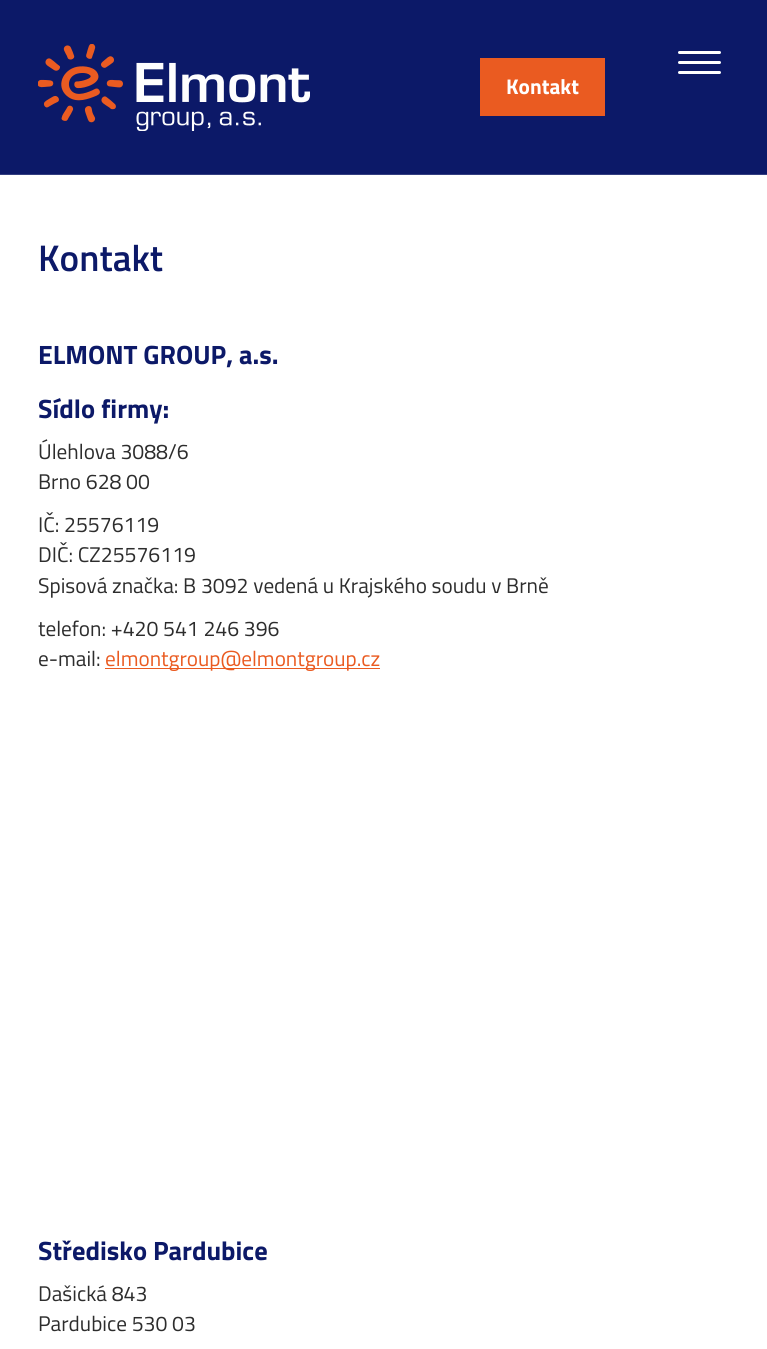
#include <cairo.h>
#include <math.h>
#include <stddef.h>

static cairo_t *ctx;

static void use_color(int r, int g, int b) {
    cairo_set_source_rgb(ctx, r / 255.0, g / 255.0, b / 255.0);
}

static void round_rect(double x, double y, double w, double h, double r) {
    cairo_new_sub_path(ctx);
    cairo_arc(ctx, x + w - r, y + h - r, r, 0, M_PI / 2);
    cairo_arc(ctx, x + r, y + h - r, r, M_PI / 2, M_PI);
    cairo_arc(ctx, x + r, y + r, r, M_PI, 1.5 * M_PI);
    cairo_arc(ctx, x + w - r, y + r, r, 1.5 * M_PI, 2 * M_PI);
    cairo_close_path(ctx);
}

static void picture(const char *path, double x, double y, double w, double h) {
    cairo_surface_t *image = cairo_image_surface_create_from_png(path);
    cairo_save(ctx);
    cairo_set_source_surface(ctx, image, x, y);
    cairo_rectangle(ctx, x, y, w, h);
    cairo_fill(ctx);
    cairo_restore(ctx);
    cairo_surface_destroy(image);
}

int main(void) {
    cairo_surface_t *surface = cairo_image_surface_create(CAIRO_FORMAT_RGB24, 767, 1349);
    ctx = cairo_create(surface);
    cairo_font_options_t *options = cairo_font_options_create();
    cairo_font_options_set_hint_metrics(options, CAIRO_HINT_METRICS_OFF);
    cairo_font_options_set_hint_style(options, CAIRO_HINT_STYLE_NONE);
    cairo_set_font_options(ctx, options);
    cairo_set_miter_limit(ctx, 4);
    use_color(255, 255, 255);
    cairo_paint(ctx);
    use_color(12, 25, 104);
    cairo_rectangle(ctx, 0, 0, 767, 174);
    cairo_fill(ctx);
    use_color(255, 255, 255);
    round_rect(678, 51, 43, 3, 1.5);
    cairo_fill(ctx);
    round_rect(678, 61, 43, 3, 1.5);
    cairo_fill(ctx);
    round_rect(678, 71, 43, 3, 1.5);
    cairo_fill(ctx);
    use_color(51, 62, 128);
    cairo_rectangle(ctx, 0, 174, 767, 1);
    cairo_fill(ctx);
    picture("img1.png", 38, 44, 272, 87);
    use_color(234, 91, 33);
    cairo_rectangle(ctx, 480, 58, 125, 58);
    cairo_fill(ctx);
    cairo_select_font_face(ctx, "Titillium Web", CAIRO_FONT_SLANT_NORMAL, CAIRO_FONT_WEIGHT_BOLD);
    cairo_set_font_size(ctx, 21.25);
    use_color(255, 255, 255);
    cairo_move_to(ctx, 506, 94);
    cairo_show_text(ctx, "Kontakt");
    cairo_select_font_face(ctx, "Titillium Web SemiBold", CAIRO_FONT_SLANT_NORMAL, CAIRO_FONT_WEIGHT_NORMAL);
    cairo_set_font_size(ctx, 37);
    use_color(12, 25, 104);
    cairo_move_to(ctx, 38, 271);
    cairo_show_text(ctx, "Kontakt");
    cairo_select_font_face(ctx, "Titillium Web", CAIRO_FONT_SLANT_NORMAL, CAIRO_FONT_WEIGHT_BOLD);
    cairo_set_font_size(ctx, 26.5);
    cairo_move_to(ctx, 38, 364);
    cairo_show_text(ctx, "ELMONT GROUP, a.s.");
    cairo_move_to(ctx, 38, 418);
    cairo_show_text(ctx, "Sídlo firmy:");
    cairo_select_font_face(ctx, "Titillium Web", CAIRO_FONT_SLANT_NORMAL, CAIRO_FONT_WEIGHT_NORMAL);
    cairo_set_font_size(ctx, 21.25);
    use_color(45, 45, 45);
    cairo_move_to(ctx, 38, 459);
    cairo_show_text(ctx, "Úlehlova 3088/6");
    cairo_move_to(ctx, 38, 489);
    cairo_show_text(ctx, "Brno 628 00");
    cairo_move_to(ctx, 38, 532);
    cairo_show_text(ctx, "IČ: 25576119");
    cairo_move_to(ctx, 38, 562);
    cairo_show_text(ctx, "DIČ: CZ25576119");
    cairo_move_to(ctx, 38, 593);
    cairo_show_text(ctx, "Spisová značka: B 3092 vedená u Krajského soudu v Brně");
    cairo_move_to(ctx, 38, 636);
    cairo_show_text(ctx, "telefon: +420 541 246 396");
    cairo_move_to(ctx, 38, 666);
    cairo_show_text(ctx, "e-mail:");
    use_color(234, 91, 33);
    cairo_rectangle(ctx, 105, 668, 275, 1);
    cairo_fill(ctx);
    cairo_move_to(ctx, 105, 666);
    cairo_show_text(ctx, "elmontgroup@elmontgroup.cz");
    cairo_select_font_face(ctx, "Titillium Web", CAIRO_FONT_SLANT_NORMAL, CAIRO_FONT_WEIGHT_BOLD);
    cairo_set_font_size(ctx, 26.5);
    use_color(12, 25, 104);
    cairo_move_to(ctx, 38, 1260);
    cairo_show_text(ctx, "Středisko Pardubice");
    cairo_select_font_face(ctx, "Titillium Web", CAIRO_FONT_SLANT_NORMAL, CAIRO_FONT_WEIGHT_NORMAL);
    cairo_set_font_size(ctx, 21.25);
    use_color(45, 45, 45);
    cairo_move_to(ctx, 38, 1301);
    cairo_show_text(ctx, "Dašická 843");
    cairo_move_to(ctx, 38, 1331);
    cairo_show_text(ctx, "Pardubice 530 03");
    cairo_surface_write_to_png(surface, "result.png");
    cairo_font_options_destroy(options);
    cairo_destroy(ctx);
    cairo_surface_destroy(surface);
    return 0;
}
